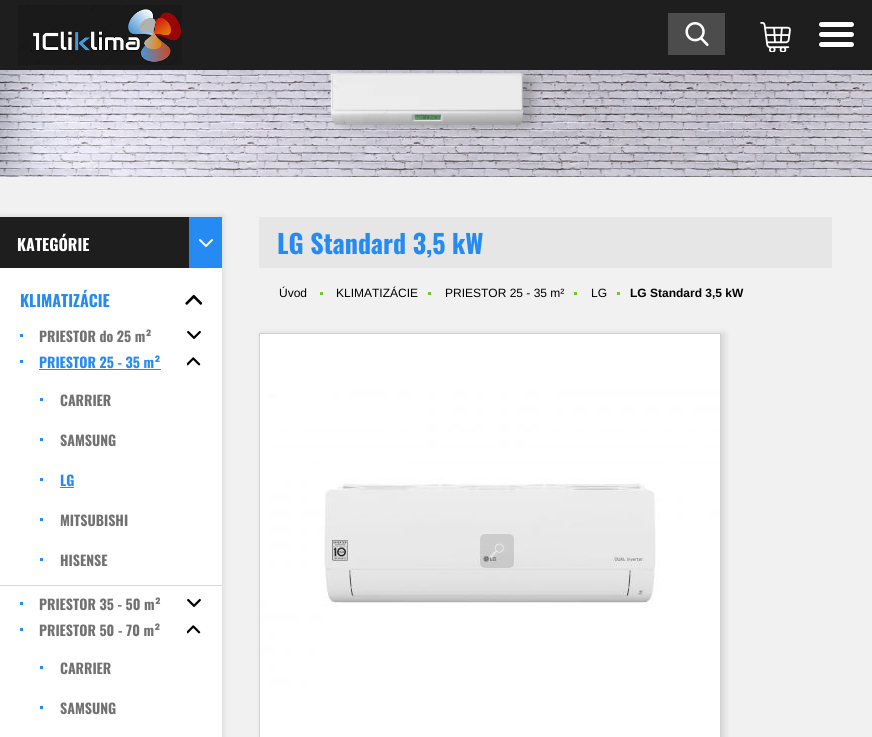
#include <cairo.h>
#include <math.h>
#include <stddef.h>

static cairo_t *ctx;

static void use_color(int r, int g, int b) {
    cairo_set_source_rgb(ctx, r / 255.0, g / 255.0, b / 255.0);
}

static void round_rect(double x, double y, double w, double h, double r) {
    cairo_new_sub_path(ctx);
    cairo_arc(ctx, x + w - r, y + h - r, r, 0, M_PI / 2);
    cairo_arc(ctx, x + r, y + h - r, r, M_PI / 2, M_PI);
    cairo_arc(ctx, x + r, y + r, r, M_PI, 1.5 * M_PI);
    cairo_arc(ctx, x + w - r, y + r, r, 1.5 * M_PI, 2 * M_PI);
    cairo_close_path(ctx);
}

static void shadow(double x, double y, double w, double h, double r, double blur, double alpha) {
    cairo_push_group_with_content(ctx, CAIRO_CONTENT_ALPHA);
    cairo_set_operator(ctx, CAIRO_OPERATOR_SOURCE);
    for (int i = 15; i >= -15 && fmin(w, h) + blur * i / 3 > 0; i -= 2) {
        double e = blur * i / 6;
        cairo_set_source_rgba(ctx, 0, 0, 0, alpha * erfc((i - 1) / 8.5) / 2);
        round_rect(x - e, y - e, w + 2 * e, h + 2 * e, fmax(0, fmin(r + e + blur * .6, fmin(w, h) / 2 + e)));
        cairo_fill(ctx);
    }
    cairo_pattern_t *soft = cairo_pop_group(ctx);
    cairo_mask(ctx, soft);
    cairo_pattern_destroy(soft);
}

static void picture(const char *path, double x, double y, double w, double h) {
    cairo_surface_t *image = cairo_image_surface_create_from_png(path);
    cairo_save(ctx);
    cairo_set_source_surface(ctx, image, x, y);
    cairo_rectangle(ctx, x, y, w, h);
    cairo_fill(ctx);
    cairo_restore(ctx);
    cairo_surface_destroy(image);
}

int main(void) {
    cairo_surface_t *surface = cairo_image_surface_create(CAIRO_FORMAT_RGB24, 872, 737);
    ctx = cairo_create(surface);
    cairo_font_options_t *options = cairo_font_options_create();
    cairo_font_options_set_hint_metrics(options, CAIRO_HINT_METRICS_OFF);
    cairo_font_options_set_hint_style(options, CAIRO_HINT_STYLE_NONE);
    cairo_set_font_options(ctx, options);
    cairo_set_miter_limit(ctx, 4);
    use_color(241, 241, 241);
    cairo_paint(ctx);
    use_color(30, 30, 30);
    cairo_rectangle(ctx, 0, 0, 872, 70);
    cairo_fill(ctx);
    use_color(76, 76, 76);
    cairo_rectangle(ctx, 668, 13, 57, 42);
    cairo_fill(ctx);
    picture("img1.png", 685, 22, 24, 24);
    picture("img2.png", 760, 22, 31, 30);
    picture("img3.png", 18, 5, 164, 60);
    use_color(0, 0, 0);
    shadow(819, 22, 35, 5, 2.5, 1, 0.4);
    use_color(255, 255, 255);
    round_rect(819, 22, 35, 5, 2.5);
    cairo_fill(ctx);
    use_color(0, 0, 0);
    shadow(819, 32, 35, 5, 2.5, 1, 0.4);
    use_color(255, 255, 255);
    round_rect(819, 32, 35, 5, 2.5);
    cairo_fill(ctx);
    use_color(0, 0, 0);
    shadow(819, 42, 35, 5, 2.5, 1, 0.4);
    use_color(255, 255, 255);
    round_rect(819, 42, 35, 5, 2.5);
    cairo_fill(ctx);
    picture("img4.png", 0, 70, 872, 107);
    use_color(4, 5, 5);
    shadow(-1, 216, 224, 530, 0, 3, 0.11);
    use_color(255, 255, 255);
    cairo_rectangle(ctx, 0, 268, 222, 469);
    cairo_fill(ctx);
    use_color(30, 30, 30);
    cairo_rectangle(ctx, 0, 217, 189, 51);
    cairo_fill(ctx);
    picture("img5.png", 189, 217, 33, 51);
    cairo_select_font_face(ctx, "Oswald", CAIRO_FONT_SLANT_NORMAL, CAIRO_FONT_WEIGHT_BOLD);
    cairo_set_font_size(ctx, 16);
    use_color(255, 255, 255);
    cairo_move_to(ctx, 17, 251);
    cairo_show_text(ctx, "KATEGÓRIE");
    use_color(37, 138, 241);
    cairo_move_to(ctx, 20, 307);
    cairo_show_text(ctx, "KLIMATIZÁCIE");
    picture("img6.png", 185, 294, 17, 11);
    cairo_rectangle(ctx, 20, 334, 3, 3);
    cairo_fill(ctx);
    cairo_set_font_size(ctx, 14);
    use_color(113, 113, 113);
    cairo_move_to(ctx, 39, 342);
    cairo_show_text(ctx, "PRIESTOR do 25 m²");
    picture("img7.png", 187, 330, 14, 9);
    use_color(37, 138, 241);
    cairo_rectangle(ctx, 20, 360, 3, 3);
    cairo_fill(ctx);
    cairo_move_to(ctx, 39, 368);
    cairo_show_text(ctx, "PRIESTOR 25 - 35 m²");
    cairo_rectangle(ctx, 39, 369, 122, 1);
    cairo_fill(ctx);
    picture("img8.png", 187, 357, 14, 9);
    use_color(217, 217, 217);
    cairo_rectangle(ctx, 0, 585, 222, 1);
    cairo_fill(ctx);
    use_color(37, 138, 241);
    cairo_rectangle(ctx, 40, 398, 3, 3);
    cairo_fill(ctx);
    use_color(113, 113, 113);
    cairo_move_to(ctx, 60, 406);
    cairo_show_text(ctx, "CARRIER");
    use_color(37, 138, 241);
    cairo_rectangle(ctx, 40, 438, 3, 3);
    cairo_fill(ctx);
    use_color(113, 113, 113);
    cairo_move_to(ctx, 60, 446);
    cairo_show_text(ctx, "SAMSUNG");
    use_color(37, 138, 241);
    cairo_rectangle(ctx, 40, 478, 3, 3);
    cairo_fill(ctx);
    cairo_move_to(ctx, 60, 486);
    cairo_show_text(ctx, "LG");
    cairo_rectangle(ctx, 60, 487, 14, 1);
    cairo_fill(ctx);
    cairo_rectangle(ctx, 40, 518, 3, 3);
    cairo_fill(ctx);
    use_color(113, 113, 113);
    cairo_move_to(ctx, 60, 526);
    cairo_show_text(ctx, "MITSUBISHI");
    use_color(37, 138, 241);
    cairo_rectangle(ctx, 40, 558, 3, 3);
    cairo_fill(ctx);
    use_color(113, 113, 113);
    cairo_move_to(ctx, 60, 566);
    cairo_show_text(ctx, "HISENSE");
    use_color(37, 138, 241);
    cairo_rectangle(ctx, 20, 602, 3, 3);
    cairo_fill(ctx);
    use_color(113, 113, 113);
    cairo_move_to(ctx, 39, 610);
    cairo_show_text(ctx, "PRIESTOR 35 - 50 m²");
    picture("img7.png", 187, 598, 14, 9);
    use_color(37, 138, 241);
    cairo_rectangle(ctx, 20, 628, 3, 3);
    cairo_fill(ctx);
    use_color(113, 113, 113);
    cairo_move_to(ctx, 39, 636);
    cairo_show_text(ctx, "PRIESTOR 50 - 70 m²");
    picture("img8.png", 187, 625, 14, 9);
    use_color(37, 138, 241);
    cairo_rectangle(ctx, 40, 666, 3, 3);
    cairo_fill(ctx);
    use_color(113, 113, 113);
    cairo_move_to(ctx, 60, 674);
    cairo_show_text(ctx, "CARRIER");
    use_color(37, 138, 241);
    cairo_rectangle(ctx, 40, 706, 3, 3);
    cairo_fill(ctx);
    use_color(113, 113, 113);
    cairo_move_to(ctx, 60, 714);
    cairo_show_text(ctx, "SAMSUNG");
    use_color(230, 230, 230);
    cairo_rectangle(ctx, 259, 217, 573, 51);
    cairo_fill(ctx);
    cairo_set_font_size(ctx, 26);
    use_color(37, 138, 241);
    cairo_move_to(ctx, 277, 254);
    cairo_show_text(ctx, "LG Standard 3,5 kW");
    cairo_select_font_face(ctx, "Liberation Sans", CAIRO_FONT_SLANT_NORMAL, CAIRO_FONT_WEIGHT_NORMAL);
    cairo_set_font_size(ctx, 12);
    use_color(0, 0, 0);
    cairo_move_to(ctx, 279, 297);
    cairo_show_text(ctx, "Úvod");
    use_color(120, 199, 35);
    cairo_rectangle(ctx, 320, 292, 3, 3);
    cairo_fill(ctx);
    use_color(0, 0, 0);
    cairo_move_to(ctx, 336, 297);
    cairo_show_text(ctx, "KLIMATIZÁCIE");
    use_color(120, 199, 35);
    cairo_rectangle(ctx, 428, 292, 3, 3);
    cairo_fill(ctx);
    use_color(0, 0, 0);
    cairo_move_to(ctx, 445, 297);
    cairo_show_text(ctx, "PRIESTOR 25 - 35 m²");
    use_color(120, 199, 35);
    cairo_rectangle(ctx, 574, 292, 3, 3);
    cairo_fill(ctx);
    use_color(0, 0, 0);
    cairo_move_to(ctx, 591, 297);
    cairo_show_text(ctx, "LG");
    use_color(120, 199, 35);
    cairo_rectangle(ctx, 617, 292, 3, 3);
    cairo_fill(ctx);
    cairo_select_font_face(ctx, "Liberation Sans", CAIRO_FONT_SLANT_NORMAL, CAIRO_FONT_WEIGHT_BOLD);
    use_color(0, 0, 0);
    cairo_move_to(ctx, 630, 297);
    cairo_show_text(ctx, "LG Standard 3,5 kW");
    use_color(4, 5, 5);
    shadow(261, 333, 464, 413, 0, 3, 0.11);
    cairo_rectangle(ctx, 259.5, 333.5, 461, 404);
    use_color(210, 210, 210);
    cairo_set_line_width(ctx, 1);
    cairo_stroke(ctx);
    picture("img9.png", 260, 334, 460, 403);
    picture("img10.png", 480, 534, 34, 34);
    cairo_surface_write_to_png(surface, "result.png");
    cairo_font_options_destroy(options);
    cairo_destroy(ctx);
    cairo_surface_destroy(surface);
    return 0;
}
